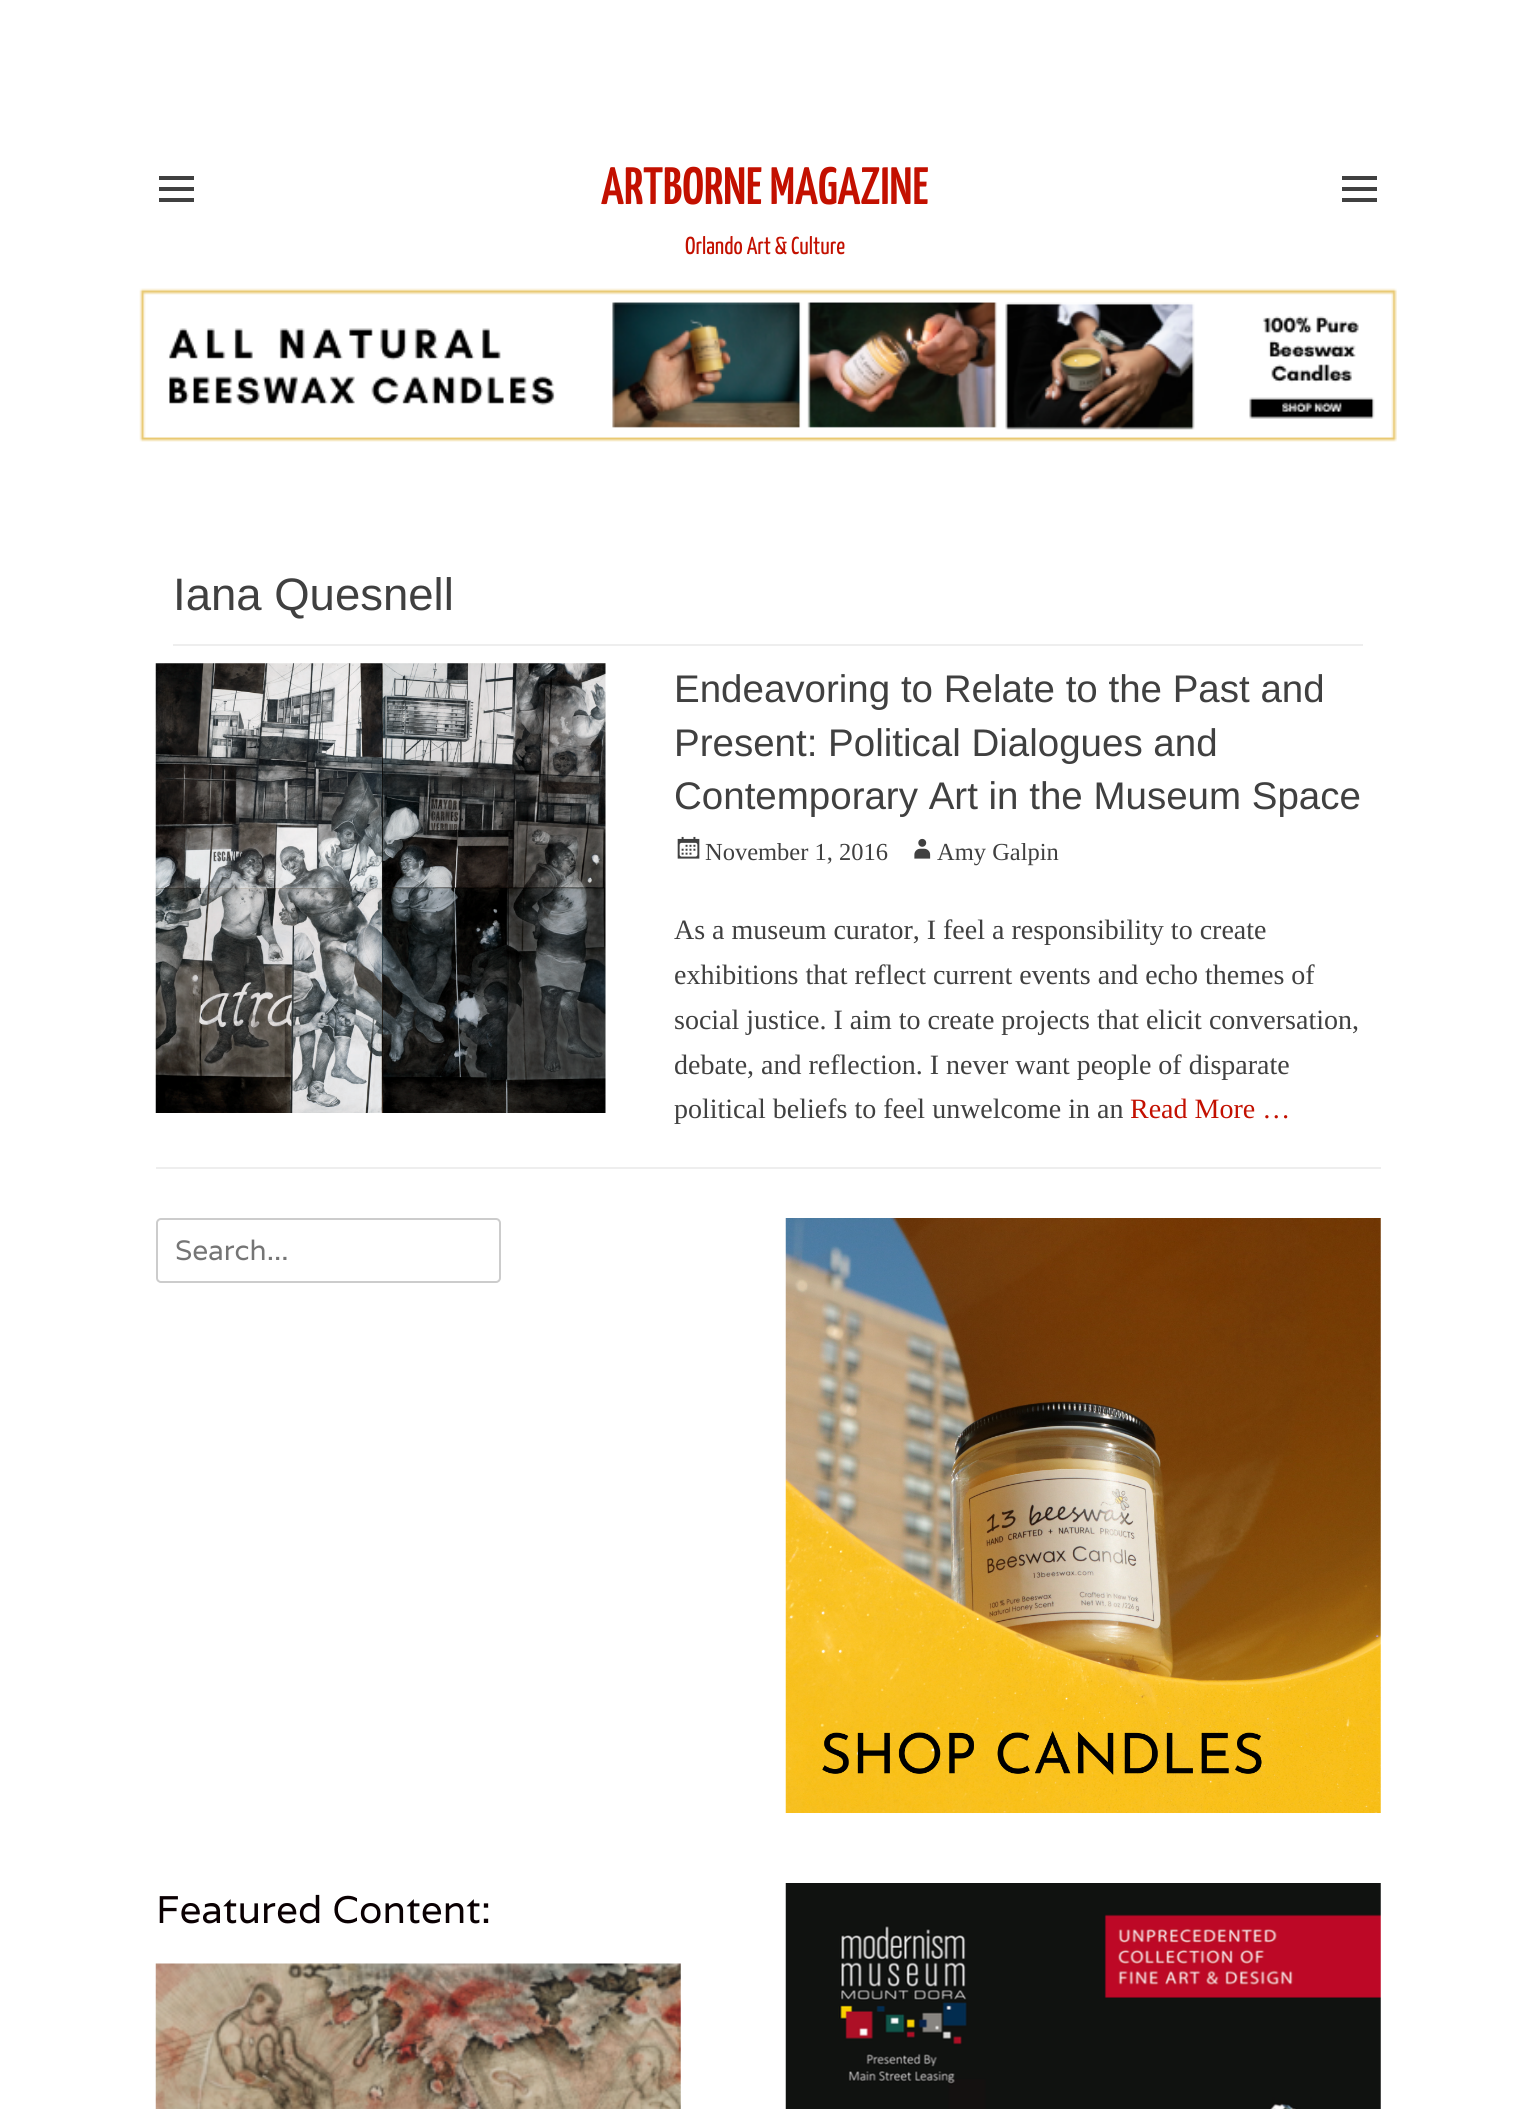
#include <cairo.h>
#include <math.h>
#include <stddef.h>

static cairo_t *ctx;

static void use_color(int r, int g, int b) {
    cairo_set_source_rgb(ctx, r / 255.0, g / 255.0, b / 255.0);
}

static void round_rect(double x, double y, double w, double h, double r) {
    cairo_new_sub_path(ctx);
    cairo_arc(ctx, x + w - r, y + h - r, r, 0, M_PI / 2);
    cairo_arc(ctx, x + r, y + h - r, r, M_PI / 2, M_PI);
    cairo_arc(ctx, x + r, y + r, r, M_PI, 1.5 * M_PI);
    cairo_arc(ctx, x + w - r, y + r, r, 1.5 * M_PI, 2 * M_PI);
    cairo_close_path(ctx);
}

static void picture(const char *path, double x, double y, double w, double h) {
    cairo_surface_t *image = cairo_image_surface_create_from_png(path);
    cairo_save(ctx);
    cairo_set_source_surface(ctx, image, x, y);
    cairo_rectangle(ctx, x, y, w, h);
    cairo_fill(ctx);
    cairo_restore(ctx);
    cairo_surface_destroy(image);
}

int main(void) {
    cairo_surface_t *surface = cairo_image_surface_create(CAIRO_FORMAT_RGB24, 1535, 2109);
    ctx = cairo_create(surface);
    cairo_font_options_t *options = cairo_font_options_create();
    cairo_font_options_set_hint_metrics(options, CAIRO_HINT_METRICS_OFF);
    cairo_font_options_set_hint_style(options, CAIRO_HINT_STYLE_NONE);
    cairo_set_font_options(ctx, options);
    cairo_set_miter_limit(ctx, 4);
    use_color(255, 255, 255);
    cairo_paint(ctx);
    use_color(64, 64, 64);
    cairo_new_path(ctx);
    cairo_move_to(ctx, 159, 202);
    cairo_line_to(ctx, 159, 198);
    cairo_line_to(ctx, 194, 198);
    cairo_line_to(ctx, 194, 202);
    cairo_close_path(ctx);
    cairo_move_to(ctx, 159, 176);
    cairo_line_to(ctx, 194, 176);
    cairo_line_to(ctx, 194, 180);
    cairo_line_to(ctx, 159, 180);
    cairo_close_path(ctx);
    cairo_move_to(ctx, 159, 191);
    cairo_line_to(ctx, 159, 187);
    cairo_line_to(ctx, 194, 187);
    cairo_line_to(ctx, 194, 191);
    cairo_close_path(ctx);
    cairo_fill(ctx);
    cairo_select_font_face(ctx, "Yanone Kaffeesatz SemiBold", CAIRO_FONT_SLANT_NORMAL, CAIRO_FONT_WEIGHT_NORMAL);
    cairo_set_font_size(ctx, 52.5);
    use_color(195, 16, 0);
    cairo_move_to(ctx, 601, 204);
    cairo_show_text(ctx, "ARTBORNE MAGAZINE");
    cairo_select_font_face(ctx, "Yanone Kaffeesatz", CAIRO_FONT_SLANT_NORMAL, CAIRO_FONT_WEIGHT_NORMAL);
    cairo_set_font_size(ctx, 24.5);
    cairo_move_to(ctx, 685, 254);
    cairo_show_text(ctx, "Orlando Art & Culture");
    use_color(64, 64, 64);
    cairo_new_path(ctx);
    cairo_move_to(ctx, 1342, 202);
    cairo_line_to(ctx, 1342, 198);
    cairo_line_to(ctx, 1377, 198);
    cairo_line_to(ctx, 1377, 202);
    cairo_close_path(ctx);
    cairo_move_to(ctx, 1342, 176);
    cairo_line_to(ctx, 1377, 176);
    cairo_line_to(ctx, 1377, 180);
    cairo_line_to(ctx, 1342, 180);
    cairo_close_path(ctx);
    cairo_move_to(ctx, 1342, 191);
    cairo_line_to(ctx, 1342, 187);
    cairo_line_to(ctx, 1377, 187);
    cairo_line_to(ctx, 1377, 191);
    cairo_close_path(ctx);
    cairo_fill(ctx);
    picture("img1.png", 139, 288, 1258, 154);
    use_color(238, 238, 238);
    cairo_rectangle(ctx, 173, 644, 1190, 2);
    cairo_fill(ctx);
    cairo_select_font_face(ctx, "Liberation Sans", CAIRO_FONT_SLANT_NORMAL, CAIRO_FONT_WEIGHT_NORMAL);
    cairo_set_font_size(ctx, 45.5);
    use_color(64, 64, 64);
    cairo_move_to(ctx, 173, 610);
    cairo_show_text(ctx, "Iana Quesnell");
    use_color(238, 238, 238);
    cairo_rectangle(ctx, 156, 1167, 1225, 2);
    cairo_fill(ctx);
    picture("img2.png", 155, 663, 451, 450);
    cairo_set_font_size(ctx, 38.5);
    use_color(64, 64, 64);
    cairo_move_to(ctx, 674, 702);
    cairo_show_text(ctx, "Endeavoring to Relate to the Past and");
    cairo_move_to(ctx, 674, 756);
    cairo_show_text(ctx, "Present: Political Dialogues and");
    cairo_move_to(ctx, 674, 809);
    cairo_show_text(ctx, "Contemporary Art in the Museum Space");
    picture("img3.png", 677, 836, 23, 23);
    cairo_select_font_face(ctx, "Liberation Serif", CAIRO_FONT_SLANT_NORMAL, CAIRO_FONT_WEIGHT_NORMAL);
    cairo_set_font_size(ctx, 24.5);
    cairo_move_to(ctx, 705, 860);
    cairo_show_text(ctx, "November 1, 2016");
    picture("img4.png", 914, 838, 17, 21);
    cairo_move_to(ctx, 937, 860);
    cairo_show_text(ctx, "Amy Galpin");
    cairo_set_font_size(ctx, 28);
    cairo_move_to(ctx, 674, 939);
    cairo_show_text(ctx, "As a museum curator, I feel a responsibility to create");
    cairo_move_to(ctx, 674, 984);
    cairo_show_text(ctx, "exhibitions that reflect current events and echo themes of");
    cairo_move_to(ctx, 674, 1029);
    cairo_show_text(ctx, "social justice. I aim to create projects that elicit conversation,");
    cairo_move_to(ctx, 674, 1074);
    cairo_show_text(ctx, "debate, and reflection. I never want people of disparate");
    cairo_move_to(ctx, 674, 1118);
    cairo_show_text(ctx, "political beliefs to feel unwelcome in an");
    use_color(195, 16, 0);
    cairo_move_to(ctx, 1130, 1118);
    cairo_show_text(ctx, "Read More …");
    round_rect(157, 1219, 343, 63, 4);
    use_color(204, 204, 204);
    cairo_stroke(ctx);
    cairo_select_font_face(ctx, "Varela", CAIRO_FONT_SLANT_NORMAL, CAIRO_FONT_WEIGHT_NORMAL);
    use_color(117, 117, 117);
    cairo_move_to(ctx, 175, 1260);
    cairo_show_text(ctx, "Search...");
    picture("img5.png", 785, 1218, 596, 595);
    cairo_set_font_size(ctx, 38.5);
    use_color(10, 0, 2);
    cairo_move_to(ctx, 156, 1923);
    cairo_show_text(ctx, "Featured Content:");
    picture("img6.png", 155, 1963, 526, 146);
    picture("img7.png", 785, 1883, 596, 226);
    cairo_surface_write_to_png(surface, "result.png");
    cairo_font_options_destroy(options);
    cairo_destroy(ctx);
    cairo_surface_destroy(surface);
    return 0;
}
